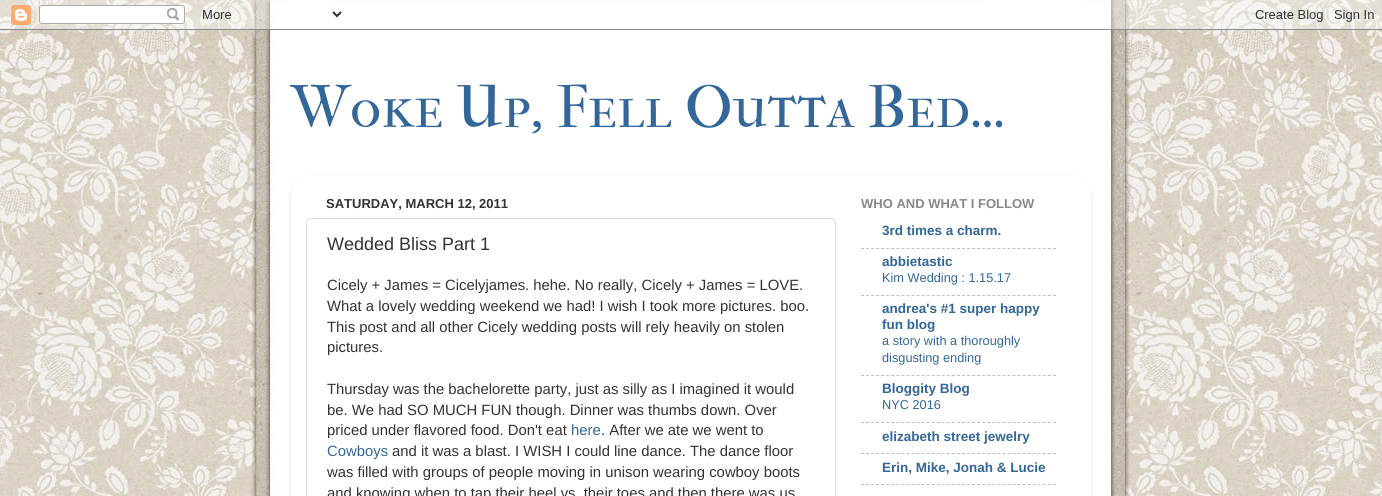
#include <cairo.h>
#include <math.h>
#include <stddef.h>

static cairo_t *ctx;

static void use_color(int r, int g, int b) {
    cairo_set_source_rgb(ctx, r / 255.0, g / 255.0, b / 255.0);
}

static void round_rect(double x, double y, double w, double h, double r) {
    cairo_new_sub_path(ctx);
    cairo_arc(ctx, x + w - r, y + h - r, r, 0, M_PI / 2);
    cairo_arc(ctx, x + r, y + h - r, r, M_PI / 2, M_PI);
    cairo_arc(ctx, x + r, y + r, r, M_PI, 1.5 * M_PI);
    cairo_arc(ctx, x + w - r, y + r, r, 1.5 * M_PI, 2 * M_PI);
    cairo_close_path(ctx);
}

static void shadow(double x, double y, double w, double h, double r, double blur, double alpha) {
    cairo_push_group_with_content(ctx, CAIRO_CONTENT_ALPHA);
    cairo_set_operator(ctx, CAIRO_OPERATOR_SOURCE);
    for (int i = 15; i >= -15 && fmin(w, h) + blur * i / 3 > 0; i -= 2) {
        double e = blur * i / 6;
        cairo_set_source_rgba(ctx, 0, 0, 0, alpha * erfc((i - 1) / 8.5) / 2);
        round_rect(x - e, y - e, w + 2 * e, h + 2 * e, fmax(0, fmin(r + e + blur * .6, fmin(w, h) / 2 + e)));
        cairo_fill(ctx);
    }
    cairo_pattern_t *soft = cairo_pop_group(ctx);
    cairo_mask(ctx, soft);
    cairo_pattern_destroy(soft);
}

static void picture(const char *path, double x, double y, double w, double h) {
    cairo_surface_t *image = cairo_image_surface_create_from_png(path);
    cairo_save(ctx);
    cairo_set_source_surface(ctx, image, x, y);
    cairo_rectangle(ctx, x, y, w, h);
    cairo_fill(ctx);
    cairo_restore(ctx);
    cairo_surface_destroy(image);
}

int main(void) {
    cairo_surface_t *surface = cairo_image_surface_create(CAIRO_FORMAT_RGB24, 1382, 496);
    ctx = cairo_create(surface);
    cairo_font_options_t *options = cairo_font_options_create();
    cairo_font_options_set_hint_metrics(options, CAIRO_HINT_METRICS_OFF);
    cairo_font_options_set_hint_style(options, CAIRO_HINT_STYLE_NONE);
    cairo_set_font_options(ctx, options);
    cairo_set_miter_limit(ctx, 4);
    use_color(255, 255, 255);
    cairo_paint(ctx);
    picture("img1.png", 0, 0, 1382, 496);
    picture("img2.png", 0, 0, 1382, 30);
    cairo_select_font_face(ctx, "IM FELL French Canon SC", CAIRO_FONT_SLANT_NORMAL, CAIRO_FONT_WEIGHT_NORMAL);
    cairo_set_font_size(ctx, 60);
    use_color(51, 102, 153);
    cairo_move_to(ctx, 291, 127);
    cairo_show_text(ctx, "Woke Up, Fell Outta Bed...");
    cairo_save(ctx);
    cairo_set_fill_rule(ctx, CAIRO_FILL_RULE_EVEN_ODD);
    cairo_new_path(ctx);
    cairo_move_to(ctx, 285, 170);
    cairo_line_to(ctx, 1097, 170);
    cairo_line_to(ctx, 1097, 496);
    cairo_line_to(ctx, 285, 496);
    cairo_close_path(ctx);
    cairo_move_to(ctx, 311, 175);
    cairo_line_to(ctx, 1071, 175);
    cairo_curve_to(ctx, 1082, 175, 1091, 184, 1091, 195);
    cairo_line_to(ctx, 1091, 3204);
    cairo_line_to(ctx, 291, 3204);
    cairo_line_to(ctx, 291, 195);
    cairo_curve_to(ctx, 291, 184, 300, 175, 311, 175);
    cairo_close_path(ctx);
    cairo_clip(ctx);
    use_color(0, 0, 0);
    shadow(291, 176, 800, 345, 20, 1.5, 0.15);
    cairo_restore(ctx);
    cairo_select_font_face(ctx, "Liberation Sans", CAIRO_FONT_SLANT_NORMAL, CAIRO_FONT_WEIGHT_BOLD);
    cairo_set_font_size(ctx, 13);
    use_color(51, 51, 51);
    cairo_move_to(ctx, 326, 208);
    cairo_show_text(ctx, "SATURDAY, MARCH 12, 2011");
    round_rect(306.5, 218.5, 529, 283, 4.5);
    use_color(221, 221, 221);
    cairo_set_line_width(ctx, 1);
    cairo_stroke(ctx);
    cairo_select_font_face(ctx, "Liberation Sans", CAIRO_FONT_SLANT_NORMAL, CAIRO_FONT_WEIGHT_NORMAL);
    cairo_set_font_size(ctx, 18);
    use_color(51, 51, 51);
    cairo_move_to(ctx, 327, 250);
    cairo_show_text(ctx, "Wedded Bliss Part 1");
    cairo_set_font_size(ctx, 14.85);
    cairo_move_to(ctx, 327, 290);
    cairo_show_text(ctx, "Cicely + James = Cicelyjames. hehe. No really, Cicely + James = LOVE.");
    cairo_move_to(ctx, 327, 311);
    cairo_show_text(ctx, "What a lovely wedding weekend we had! I wish I took more pictures. boo.");
    cairo_move_to(ctx, 327, 332);
    cairo_show_text(ctx, "This post and all other Cicely wedding posts will rely heavily on stolen");
    cairo_move_to(ctx, 327, 352);
    cairo_show_text(ctx, "pictures.");
    cairo_move_to(ctx, 327, 394);
    cairo_show_text(ctx, "Thursday was the bachelorette party, just as silly as I imagined it would");
    cairo_move_to(ctx, 327, 415);
    cairo_show_text(ctx, "be. We had SO MUCH FUN though. Dinner was thumbs down. Over");
    cairo_move_to(ctx, 327, 435);
    cairo_show_text(ctx, "priced under flavored food. Don't eat");
    use_color(51, 102, 153);
    cairo_move_to(ctx, 571, 435);
    cairo_show_text(ctx, "here");
    use_color(51, 51, 51);
    cairo_move_to(ctx, 601, 435);
    cairo_show_text(ctx, ". After we ate we went to");
    use_color(51, 102, 153);
    cairo_move_to(ctx, 327, 456);
    cairo_show_text(ctx, "Cowboys");
    use_color(51, 51, 51);
    cairo_move_to(ctx, 392, 456);
    cairo_show_text(ctx, "and it was a blast. I WISH I could line dance. The dance floor");
    cairo_move_to(ctx, 327, 477);
    cairo_show_text(ctx, "was filled with groups of people moving in unison wearing cowboy boots");
    cairo_move_to(ctx, 327, 498);
    cairo_show_text(ctx, "and knowing when to tap their heel vs. their toes and then there was us");
    cairo_select_font_face(ctx, "Liberation Sans", CAIRO_FONT_SLANT_NORMAL, CAIRO_FONT_WEIGHT_BOLD);
    cairo_set_font_size(ctx, 13);
    use_color(136, 136, 136);
    cairo_move_to(ctx, 861, 208);
    cairo_show_text(ctx, "WHO AND WHAT I FOLLOW");
    cairo_set_font_size(ctx, 13.5);
    use_color(51, 102, 153);
    cairo_move_to(ctx, 882, 235);
    cairo_show_text(ctx, "3rd times a charm.");
    cairo_new_path(ctx);
    cairo_move_to(ctx, 861, 248.5);
    cairo_line_to(ctx, 1056, 248.5);
    use_color(192, 192, 192);
    cairo_set_dash(ctx, (double[]){3, 2.05}, 2, 0);
    cairo_stroke(ctx);
    use_color(51, 102, 153);
    cairo_move_to(ctx, 882, 266);
    cairo_show_text(ctx, "abbietastic");
    cairo_select_font_face(ctx, "Liberation Sans", CAIRO_FONT_SLANT_NORMAL, CAIRO_FONT_WEIGHT_NORMAL);
    cairo_set_font_size(ctx, 12.75);
    cairo_move_to(ctx, 882, 282);
    cairo_show_text(ctx, "Kim Wedding : 1.15.17");
    cairo_new_path(ctx);
    cairo_move_to(ctx, 861, 295.5);
    cairo_line_to(ctx, 1056, 295.5);
    use_color(192, 192, 192);
    cairo_stroke(ctx);
    cairo_select_font_face(ctx, "Liberation Sans", CAIRO_FONT_SLANT_NORMAL, CAIRO_FONT_WEIGHT_BOLD);
    cairo_set_font_size(ctx, 13.5);
    use_color(51, 102, 153);
    cairo_move_to(ctx, 882, 313);
    cairo_show_text(ctx, "andrea's #1 super happy");
    cairo_move_to(ctx, 882, 329);
    cairo_show_text(ctx, "fun blog");
    cairo_select_font_face(ctx, "Liberation Sans", CAIRO_FONT_SLANT_NORMAL, CAIRO_FONT_WEIGHT_NORMAL);
    cairo_set_font_size(ctx, 12.75);
    cairo_move_to(ctx, 882, 345);
    cairo_show_text(ctx, "a story with a thoroughly");
    cairo_move_to(ctx, 882, 362);
    cairo_show_text(ctx, "disgusting ending");
    cairo_new_path(ctx);
    cairo_move_to(ctx, 861, 375.5);
    cairo_line_to(ctx, 1056, 375.5);
    use_color(192, 192, 192);
    cairo_stroke(ctx);
    cairo_select_font_face(ctx, "Liberation Sans", CAIRO_FONT_SLANT_NORMAL, CAIRO_FONT_WEIGHT_BOLD);
    cairo_set_font_size(ctx, 13.5);
    use_color(51, 102, 153);
    cairo_move_to(ctx, 882, 393);
    cairo_show_text(ctx, "Bloggity Blog");
    cairo_select_font_face(ctx, "Liberation Sans", CAIRO_FONT_SLANT_NORMAL, CAIRO_FONT_WEIGHT_NORMAL);
    cairo_set_font_size(ctx, 12.75);
    cairo_move_to(ctx, 882, 409);
    cairo_show_text(ctx, "NYC 2016");
    cairo_new_path(ctx);
    cairo_move_to(ctx, 861, 422.5);
    cairo_line_to(ctx, 1056, 422.5);
    use_color(192, 192, 192);
    cairo_stroke(ctx);
    cairo_select_font_face(ctx, "Liberation Sans", CAIRO_FONT_SLANT_NORMAL, CAIRO_FONT_WEIGHT_BOLD);
    cairo_set_font_size(ctx, 13.5);
    use_color(51, 102, 153);
    cairo_move_to(ctx, 882, 441);
    cairo_show_text(ctx, "elizabeth street jewelry");
    cairo_new_path(ctx);
    cairo_move_to(ctx, 861, 453.5);
    cairo_line_to(ctx, 1056, 453.5);
    use_color(192, 192, 192);
    cairo_stroke(ctx);
    use_color(51, 102, 153);
    cairo_move_to(ctx, 882, 472);
    cairo_show_text(ctx, "Erin, Mike, Jonah & Lucie");
    cairo_new_path(ctx);
    cairo_move_to(ctx, 861, 484.5);
    cairo_line_to(ctx, 1056, 484.5);
    use_color(192, 192, 192);
    cairo_stroke(ctx);
    cairo_surface_write_to_png(surface, "result.png");
    cairo_font_options_destroy(options);
    cairo_destroy(ctx);
    cairo_surface_destroy(surface);
    return 0;
}
